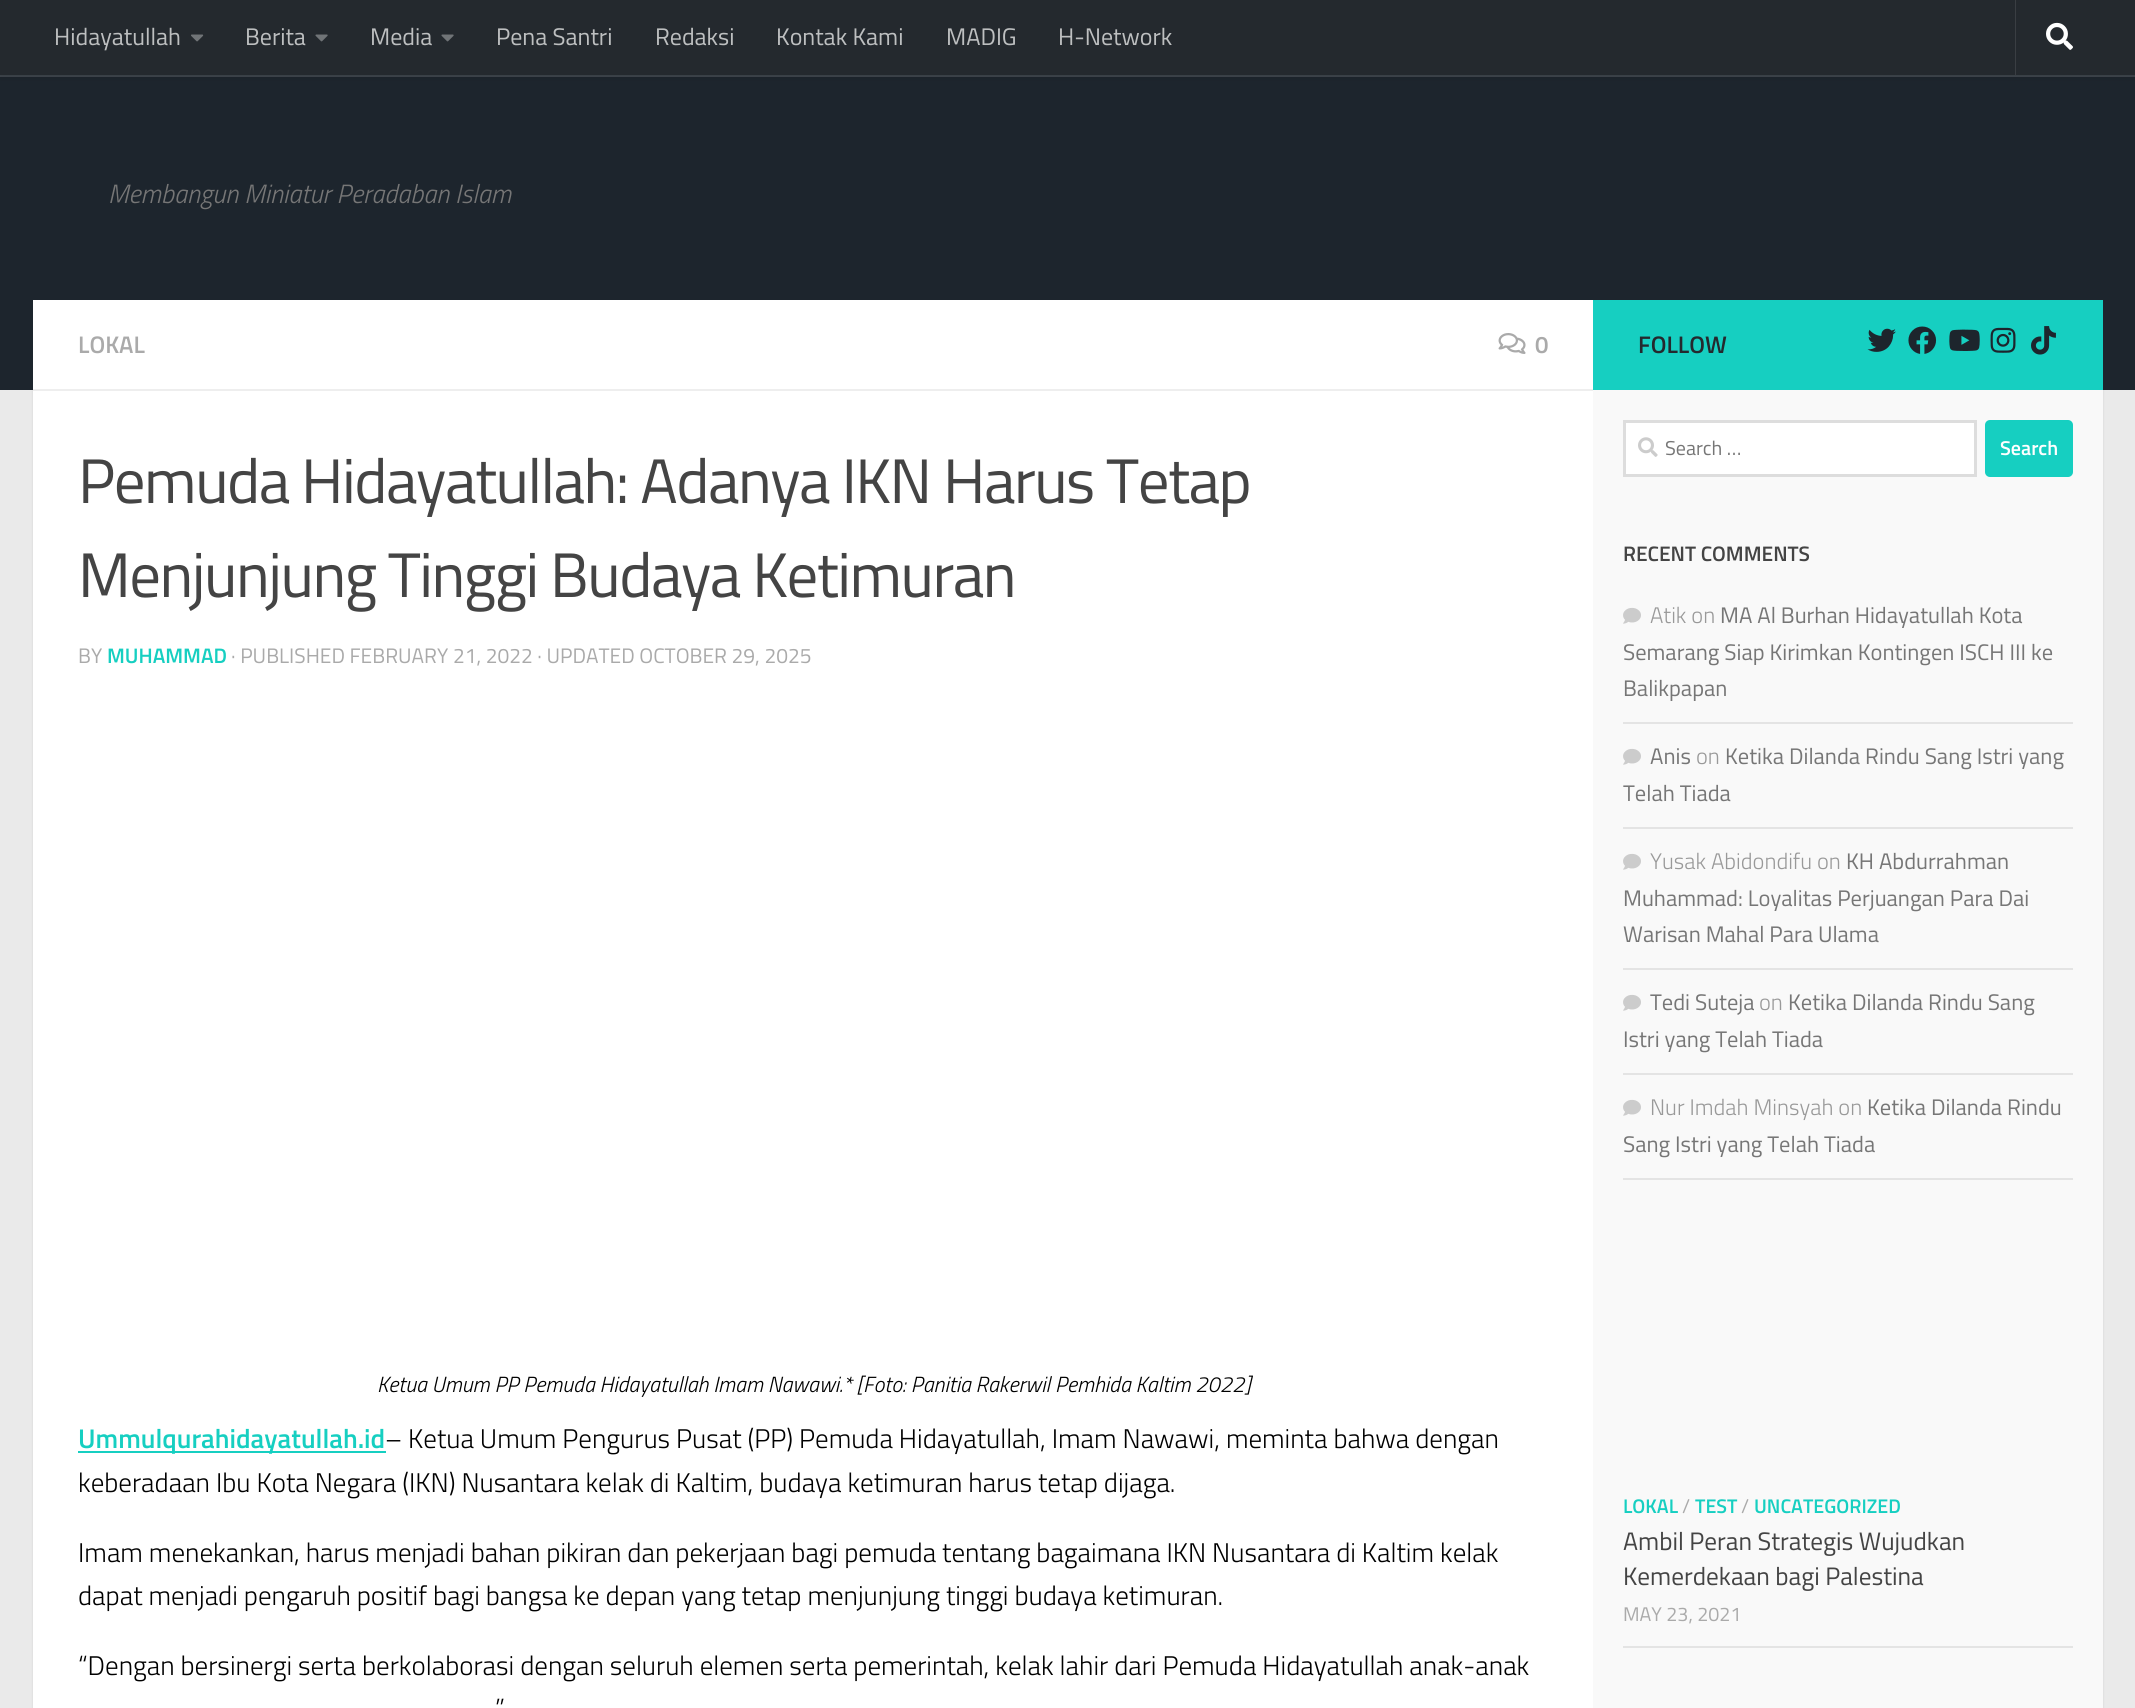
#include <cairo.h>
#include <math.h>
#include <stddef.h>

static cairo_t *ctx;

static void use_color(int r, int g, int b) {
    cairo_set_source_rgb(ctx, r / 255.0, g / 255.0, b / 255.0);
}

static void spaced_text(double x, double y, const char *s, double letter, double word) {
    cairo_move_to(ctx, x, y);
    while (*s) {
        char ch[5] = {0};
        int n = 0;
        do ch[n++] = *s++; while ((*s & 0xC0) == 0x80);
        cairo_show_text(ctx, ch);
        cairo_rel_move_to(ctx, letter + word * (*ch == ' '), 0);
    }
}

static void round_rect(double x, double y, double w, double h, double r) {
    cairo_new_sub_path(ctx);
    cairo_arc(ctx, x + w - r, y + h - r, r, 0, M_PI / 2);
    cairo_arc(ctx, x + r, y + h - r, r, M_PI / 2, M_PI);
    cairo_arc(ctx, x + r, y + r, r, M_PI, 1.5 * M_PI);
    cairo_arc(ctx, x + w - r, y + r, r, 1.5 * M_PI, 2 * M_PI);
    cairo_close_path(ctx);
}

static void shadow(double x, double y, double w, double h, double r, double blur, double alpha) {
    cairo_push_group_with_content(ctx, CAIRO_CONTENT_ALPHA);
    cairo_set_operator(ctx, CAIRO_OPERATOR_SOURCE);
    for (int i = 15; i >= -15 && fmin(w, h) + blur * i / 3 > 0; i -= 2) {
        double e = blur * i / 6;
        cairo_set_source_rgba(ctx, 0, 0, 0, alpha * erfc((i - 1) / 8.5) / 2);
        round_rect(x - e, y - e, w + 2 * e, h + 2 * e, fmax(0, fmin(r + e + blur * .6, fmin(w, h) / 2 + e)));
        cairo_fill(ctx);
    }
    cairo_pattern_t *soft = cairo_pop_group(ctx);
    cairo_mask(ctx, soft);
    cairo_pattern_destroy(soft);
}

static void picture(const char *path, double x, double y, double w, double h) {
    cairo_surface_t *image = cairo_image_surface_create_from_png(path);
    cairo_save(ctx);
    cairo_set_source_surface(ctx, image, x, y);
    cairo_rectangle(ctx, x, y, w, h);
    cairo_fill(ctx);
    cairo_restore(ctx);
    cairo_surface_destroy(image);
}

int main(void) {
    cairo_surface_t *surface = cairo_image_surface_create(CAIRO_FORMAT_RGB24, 2135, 1708);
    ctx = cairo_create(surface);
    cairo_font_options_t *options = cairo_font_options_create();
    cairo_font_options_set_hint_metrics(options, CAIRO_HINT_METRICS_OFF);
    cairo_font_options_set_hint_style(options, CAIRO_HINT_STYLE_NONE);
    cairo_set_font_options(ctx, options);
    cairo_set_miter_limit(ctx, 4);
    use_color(234, 234, 234);
    cairo_paint(ctx);
    use_color(0, 0, 0);
    shadow(33, 302, 2070, 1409, 0, 1, 0.1);
    use_color(29, 37, 45);
    cairo_rectangle(ctx, 0, 77, 2135, 313);
    cairo_fill(ctx);
    use_color(63, 70, 77);
    cairo_rectangle(ctx, 0, 75, 2135, 2);
    cairo_fill(ctx);
    use_color(0, 0, 0);
    shadow(0, 0, 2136, 75, 0, 4, 0.2);
    use_color(36, 41, 46);
    cairo_rectangle(ctx, 0, 0, 2135, 75);
    cairo_fill(ctx);
    cairo_select_font_face(ctx, "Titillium", CAIRO_FONT_SLANT_NORMAL, CAIRO_FONT_WEIGHT_NORMAL);
    cairo_set_font_size(ctx, 24);
    use_color(189, 191, 192);
    cairo_move_to(ctx, 54, 45);
    cairo_show_text(ctx, "Hidayatullah");
    picture("img1.png", 191, 34, 13, 8);
    cairo_move_to(ctx, 245, 45);
    cairo_show_text(ctx, "Berita");
    picture("img2.png", 315, 34, 13, 8);
    cairo_move_to(ctx, 370, 45);
    cairo_show_text(ctx, "Media");
    picture("img2.png", 441, 34, 13, 8);
    cairo_move_to(ctx, 496, 45);
    cairo_show_text(ctx, "Pena Santri");
    cairo_move_to(ctx, 655, 45);
    cairo_show_text(ctx, "Redaksi");
    cairo_move_to(ctx, 776, 45);
    cairo_show_text(ctx, "Kontak Kami");
    cairo_move_to(ctx, 946, 45);
    cairo_show_text(ctx, "MADIG");
    cairo_move_to(ctx, 1058, 45);
    cairo_show_text(ctx, "H-Network");
    use_color(58, 62, 67);
    cairo_rectangle(ctx, 2015, 0, 1, 75);
    cairo_fill(ctx);
    picture("img3.png", 2046, 22, 27, 28);
    cairo_select_font_face(ctx, "Titillium Light", CAIRO_FONT_SLANT_ITALIC, CAIRO_FONT_WEIGHT_NORMAL);
    cairo_set_font_size(ctx, 26.4);
    use_color(118, 118, 118);
    cairo_move_to(ctx, 108, 203);
    cairo_show_text(ctx, "Membangun Miniatur Peradaban Islam");
    use_color(255, 255, 255);
    cairo_rectangle(ctx, 33, 300, 1560, 1408);
    cairo_fill(ctx);
    use_color(238, 238, 238);
    cairo_rectangle(ctx, 33, 389, 1560, 2);
    cairo_fill(ctx);
    cairo_select_font_face(ctx, "Titillium SemiBold", CAIRO_FONT_SLANT_NORMAL, CAIRO_FONT_WEIGHT_NORMAL);
    cairo_set_font_size(ctx, 24);
    use_color(170, 170, 170);
    cairo_move_to(ctx, 78, 353);
    cairo_show_text(ctx, "LOKAL");
    picture("img4.png", 1498, 333, 28, 21);
    cairo_move_to(ctx, 1535, 353);
    cairo_show_text(ctx, "0");
    cairo_select_font_face(ctx, "Titillium", CAIRO_FONT_SLANT_NORMAL, CAIRO_FONT_WEIGHT_NORMAL);
    cairo_set_font_size(ctx, 62.9);
    use_color(68, 68, 68);
    spaced_text(78, 503, "Pemuda Hidayatullah: Adanya IKN Harus Tetap", -1.5, 0);
    spaced_text(78, 597, "Menjunjung Tinggi Budaya Ketimuran", -1.5, 0);
    cairo_set_font_size(ctx, 21);
    use_color(170, 170, 170);
    cairo_move_to(ctx, 78, 663);
    cairo_show_text(ctx, "BY");
    cairo_select_font_face(ctx, "Titillium SemiBold", CAIRO_FONT_SLANT_NORMAL, CAIRO_FONT_WEIGHT_NORMAL);
    use_color(22, 207, 193);
    cairo_move_to(ctx, 107, 663);
    cairo_show_text(ctx, "MUHAMMAD");
    cairo_select_font_face(ctx, "Titillium", CAIRO_FONT_SLANT_NORMAL, CAIRO_FONT_WEIGHT_NORMAL);
    use_color(170, 170, 170);
    cairo_move_to(ctx, 231, 663);
    cairo_show_text(ctx, "· PUBLISHED FEBRUARY 21, 2022 · UPDATED OCTOBER 29, 2025");
    cairo_select_font_face(ctx, "Titillium Light", CAIRO_FONT_SLANT_ITALIC, CAIRO_FONT_WEIGHT_NORMAL);
    cairo_set_font_size(ctx, 21.95);
    use_color(0, 0, 0);
    cairo_move_to(ctx, 377, 1392);
    cairo_show_text(ctx, "Ketua Umum PP Pemuda Hidayatullah Imam Nawawi.* [Foto: Panitia Rakerwil Pemhida Kaltim 2022]");
    use_color(22, 207, 193);
    cairo_rectangle(ctx, 78, 1451, 308, 2);
    cairo_fill(ctx);
    cairo_select_font_face(ctx, "Titillium SemiBold", CAIRO_FONT_SLANT_NORMAL, CAIRO_FONT_WEIGHT_NORMAL);
    cairo_set_font_size(ctx, 27);
    cairo_move_to(ctx, 78, 1448);
    cairo_show_text(ctx, "Ummulqurahidayatullah.id");
    cairo_select_font_face(ctx, "Titillium Light", CAIRO_FONT_SLANT_NORMAL, CAIRO_FONT_WEIGHT_NORMAL);
    use_color(0, 0, 0);
    cairo_move_to(ctx, 385, 1448);
    cairo_show_text(ctx, "– Ketua Umum Pengurus Pusat (PP) Pemuda Hidayatullah, Imam Nawawi, meminta bahwa dengan");
    cairo_move_to(ctx, 78, 1492);
    cairo_show_text(ctx, "keberadaan Ibu Kota Negara (IKN) Nusantara kelak di Kaltim, budaya ketimuran harus tetap dijaga.");
    cairo_move_to(ctx, 78, 1562);
    cairo_show_text(ctx, "Imam menekankan, harus menjadi bahan pikiran dan pekerjaan bagi pemuda tentang bagaimana IKN Nusantara di Kaltim kelak");
    cairo_move_to(ctx, 78, 1605);
    cairo_show_text(ctx, "dapat menjadi pengaruh positif bagi bangsa ke depan yang tetap menjunjung tinggi budaya ketimuran.");
    cairo_move_to(ctx, 78, 1675);
    cairo_show_text(ctx, "“Dengan bersinergi serta berkolaborasi dengan seluruh elemen serta pemerintah, kelak lahir dari Pemuda Hidayatullah anak-anak");
    cairo_move_to(ctx, 495, 1718);
    cairo_show_text(ctx, "”");
    use_color(22, 207, 193);
    cairo_rectangle(ctx, 1593, 300, 510, 90);
    cairo_fill(ctx);
    cairo_select_font_face(ctx, "Titillium SemiBold", CAIRO_FONT_SLANT_NORMAL, CAIRO_FONT_WEIGHT_NORMAL);
    cairo_set_font_size(ctx, 24);
    use_color(36, 41, 46);
    cairo_move_to(ctx, 1638, 353);
    cairo_show_text(ctx, "FOLLOW");
    picture("img5.png", 1867, 328, 29, 24);
    picture("img6.png", 1908, 326, 29, 28);
    picture("img7.png", 1949, 329, 31, 22);
    picture("img8.png", 1990, 327, 26, 26);
    picture("img9.png", 2031, 326, 25, 29);
    use_color(249, 249, 249);
    cairo_rectangle(ctx, 1593, 390, 510, 1318);
    cairo_fill(ctx);
    use_color(255, 255, 255);
    cairo_rectangle(ctx, 1624.5, 421.5, 351, 54);
    cairo_fill_preserve(ctx);
    use_color(221, 221, 221);
    cairo_set_line_width(ctx, 3);
    cairo_stroke(ctx);
    picture("img10.png", 1638, 437, 20, 20);
    cairo_select_font_face(ctx, "Titillium", CAIRO_FONT_SLANT_NORMAL, CAIRO_FONT_WEIGHT_NORMAL);
    cairo_set_font_size(ctx, 20);
    use_color(118, 118, 118);
    cairo_move_to(ctx, 1665, 455);
    cairo_show_text(ctx, "Search …");
    use_color(22, 207, 193);
    round_rect(1985, 420, 88, 57, 5);
    cairo_fill(ctx);
    cairo_select_font_face(ctx, "Titillium SemiBold", CAIRO_FONT_SLANT_NORMAL, CAIRO_FONT_WEIGHT_NORMAL);
    use_color(255, 255, 255);
    cairo_move_to(ctx, 2000, 455);
    cairo_show_text(ctx, "Search");
    cairo_set_font_size(ctx, 21);
    use_color(68, 68, 68);
    cairo_move_to(ctx, 1623, 561);
    cairo_show_text(ctx, "RECENT COMMENTS");
    use_color(228, 228, 228);
    cairo_rectangle(ctx, 1623, 722, 450, 2);
    cairo_fill(ctx);
    picture("img11.png", 1623, 607, 18, 17);
    cairo_select_font_face(ctx, "Titillium Light", CAIRO_FONT_SLANT_NORMAL, CAIRO_FONT_WEIGHT_NORMAL);
    cairo_set_font_size(ctx, 22.5);
    use_color(153, 153, 153);
    cairo_move_to(ctx, 1650, 623);
    cairo_show_text(ctx, "Atik on");
    cairo_select_font_face(ctx, "Titillium", CAIRO_FONT_SLANT_NORMAL, CAIRO_FONT_WEIGHT_NORMAL);
    use_color(118, 118, 118);
    cairo_move_to(ctx, 1720, 623);
    cairo_show_text(ctx, "MA Al Burhan Hidayatullah Kota");
    cairo_move_to(ctx, 1623, 660);
    cairo_show_text(ctx, "Semarang Siap Kirimkan Kontingen ISCH III ke");
    cairo_move_to(ctx, 1623, 696);
    cairo_show_text(ctx, "Balikpapan");
    use_color(228, 228, 228);
    cairo_rectangle(ctx, 1623, 827, 450, 2);
    cairo_fill(ctx);
    picture("img11.png", 1623, 748, 18, 17);
    use_color(118, 118, 118);
    cairo_move_to(ctx, 1650, 764);
    cairo_show_text(ctx, "Anis");
    cairo_select_font_face(ctx, "Titillium Light", CAIRO_FONT_SLANT_NORMAL, CAIRO_FONT_WEIGHT_NORMAL);
    use_color(153, 153, 153);
    cairo_move_to(ctx, 1696, 764);
    cairo_show_text(ctx, "on");
    cairo_select_font_face(ctx, "Titillium", CAIRO_FONT_SLANT_NORMAL, CAIRO_FONT_WEIGHT_NORMAL);
    use_color(118, 118, 118);
    cairo_move_to(ctx, 1725, 764);
    cairo_show_text(ctx, "Ketika Dilanda Rindu Sang Istri yang");
    cairo_move_to(ctx, 1623, 801);
    cairo_show_text(ctx, "Telah Tiada");
    use_color(228, 228, 228);
    cairo_rectangle(ctx, 1623, 968, 450, 2);
    cairo_fill(ctx);
    picture("img11.png", 1623, 853, 18, 17);
    cairo_select_font_face(ctx, "Titillium Light", CAIRO_FONT_SLANT_NORMAL, CAIRO_FONT_WEIGHT_NORMAL);
    use_color(153, 153, 153);
    cairo_move_to(ctx, 1650, 869);
    cairo_show_text(ctx, "Yusak Abidondifu on");
    cairo_select_font_face(ctx, "Titillium", CAIRO_FONT_SLANT_NORMAL, CAIRO_FONT_WEIGHT_NORMAL);
    use_color(118, 118, 118);
    cairo_move_to(ctx, 1846, 869);
    cairo_show_text(ctx, "KH Abdurrahman");
    cairo_move_to(ctx, 1623, 906);
    cairo_show_text(ctx, "Muhammad: Loyalitas Perjuangan Para Dai");
    cairo_move_to(ctx, 1623, 942);
    cairo_show_text(ctx, "Warisan Mahal Para Ulama");
    use_color(228, 228, 228);
    cairo_rectangle(ctx, 1623, 1073, 450, 2);
    cairo_fill(ctx);
    picture("img11.png", 1623, 994, 18, 17);
    use_color(118, 118, 118);
    cairo_move_to(ctx, 1650, 1010);
    cairo_show_text(ctx, "Tedi Suteja");
    cairo_select_font_face(ctx, "Titillium Light", CAIRO_FONT_SLANT_NORMAL, CAIRO_FONT_WEIGHT_NORMAL);
    use_color(153, 153, 153);
    cairo_move_to(ctx, 1759, 1010);
    cairo_show_text(ctx, "on");
    cairo_select_font_face(ctx, "Titillium", CAIRO_FONT_SLANT_NORMAL, CAIRO_FONT_WEIGHT_NORMAL);
    use_color(118, 118, 118);
    cairo_move_to(ctx, 1788, 1010);
    cairo_show_text(ctx, "Ketika Dilanda Rindu Sang");
    cairo_move_to(ctx, 1623, 1047);
    cairo_show_text(ctx, "Istri yang Telah Tiada");
    use_color(228, 228, 228);
    cairo_rectangle(ctx, 1623, 1178, 450, 2);
    cairo_fill(ctx);
    picture("img11.png", 1623, 1099, 18, 17);
    cairo_select_font_face(ctx, "Titillium Light", CAIRO_FONT_SLANT_NORMAL, CAIRO_FONT_WEIGHT_NORMAL);
    use_color(153, 153, 153);
    cairo_move_to(ctx, 1650, 1115);
    cairo_show_text(ctx, "Nur Imdah Minsyah on");
    cairo_select_font_face(ctx, "Titillium", CAIRO_FONT_SLANT_NORMAL, CAIRO_FONT_WEIGHT_NORMAL);
    use_color(118, 118, 118);
    cairo_move_to(ctx, 1867, 1115);
    cairo_show_text(ctx, "Ketika Dilanda Rindu");
    cairo_move_to(ctx, 1623, 1152);
    cairo_show_text(ctx, "Sang Istri yang Telah Tiada");
    use_color(228, 228, 228);
    cairo_rectangle(ctx, 1623, 1646, 450, 2);
    cairo_fill(ctx);
    cairo_select_font_face(ctx, "Titillium SemiBold", CAIRO_FONT_SLANT_NORMAL, CAIRO_FONT_WEIGHT_NORMAL);
    cairo_set_font_size(ctx, 19.75);
    use_color(22, 207, 193);
    cairo_move_to(ctx, 1623, 1513);
    cairo_show_text(ctx, "LOKAL");
    cairo_select_font_face(ctx, "Titillium", CAIRO_FONT_SLANT_NORMAL, CAIRO_FONT_WEIGHT_NORMAL);
    use_color(170, 170, 170);
    cairo_move_to(ctx, 1682, 1513);
    cairo_show_text(ctx, "/");
    cairo_select_font_face(ctx, "Titillium SemiBold", CAIRO_FONT_SLANT_NORMAL, CAIRO_FONT_WEIGHT_NORMAL);
    use_color(22, 207, 193);
    cairo_move_to(ctx, 1695, 1513);
    cairo_show_text(ctx, "TEST");
    cairo_select_font_face(ctx, "Titillium", CAIRO_FONT_SLANT_NORMAL, CAIRO_FONT_WEIGHT_NORMAL);
    use_color(170, 170, 170);
    cairo_move_to(ctx, 1741, 1513);
    cairo_show_text(ctx, "/");
    cairo_select_font_face(ctx, "Titillium SemiBold", CAIRO_FONT_SLANT_NORMAL, CAIRO_FONT_WEIGHT_NORMAL);
    use_color(22, 207, 193);
    cairo_move_to(ctx, 1754, 1513);
    cairo_show_text(ctx, "UNCATEGORIZED");
    cairo_select_font_face(ctx, "Titillium", CAIRO_FONT_SLANT_NORMAL, CAIRO_FONT_WEIGHT_NORMAL);
    cairo_set_font_size(ctx, 25.25);
    use_color(68, 68, 68);
    cairo_move_to(ctx, 1623, 1550);
    cairo_show_text(ctx, "Ambil Peran Strategis Wujudkan");
    cairo_move_to(ctx, 1623, 1585);
    cairo_show_text(ctx, "Kemerdekaan bagi Palestina");
    cairo_set_font_size(ctx, 19.75);
    use_color(170, 170, 170);
    cairo_move_to(ctx, 1623, 1621);
    cairo_show_text(ctx, "MAY 23, 2021");
    cairo_surface_write_to_png(surface, "result.png");
    cairo_font_options_destroy(options);
    cairo_destroy(ctx);
    cairo_surface_destroy(surface);
    return 0;
}
